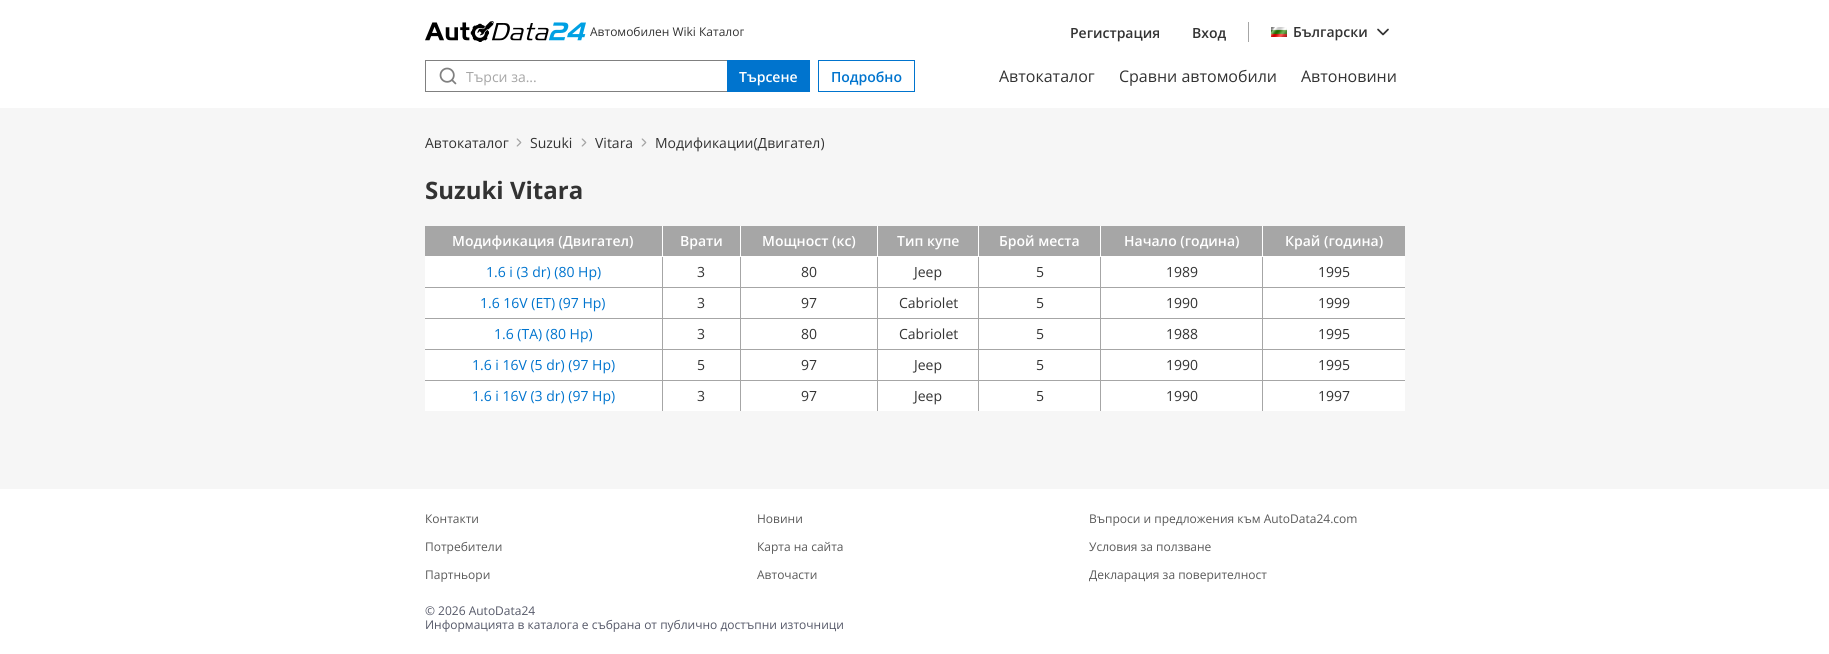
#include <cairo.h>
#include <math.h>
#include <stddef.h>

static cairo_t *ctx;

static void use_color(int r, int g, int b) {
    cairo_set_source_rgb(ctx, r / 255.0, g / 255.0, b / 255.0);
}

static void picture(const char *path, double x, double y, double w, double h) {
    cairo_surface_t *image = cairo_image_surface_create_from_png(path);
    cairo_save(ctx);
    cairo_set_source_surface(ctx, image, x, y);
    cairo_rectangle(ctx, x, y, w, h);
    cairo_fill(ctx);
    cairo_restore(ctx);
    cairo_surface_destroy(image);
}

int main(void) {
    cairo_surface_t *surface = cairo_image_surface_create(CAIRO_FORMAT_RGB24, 1829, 654);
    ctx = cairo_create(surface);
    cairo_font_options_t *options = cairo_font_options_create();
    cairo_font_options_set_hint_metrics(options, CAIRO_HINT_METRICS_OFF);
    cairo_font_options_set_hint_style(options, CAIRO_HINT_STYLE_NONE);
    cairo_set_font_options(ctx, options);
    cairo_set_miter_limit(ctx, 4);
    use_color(246, 246, 246);
    cairo_paint(ctx);
    use_color(255, 255, 255);
    cairo_rectangle(ctx, 0, 0, 1829, 108);
    cairo_fill(ctx);
    picture("img1.png", 425, 21, 161, 21);
    cairo_select_font_face(ctx, "Open Sans", CAIRO_FONT_SLANT_NORMAL, CAIRO_FONT_WEIGHT_NORMAL);
    cairo_set_font_size(ctx, 12);
    use_color(51, 51, 51);
    cairo_move_to(ctx, 590, 36);
    cairo_show_text(ctx, "Автомобилен Wiki Каталог");
    cairo_select_font_face(ctx, "Open Sans SemiBold", CAIRO_FONT_SLANT_NORMAL, CAIRO_FONT_WEIGHT_NORMAL);
    cairo_set_font_size(ctx, 14);
    cairo_move_to(ctx, 1070, 38);
    cairo_show_text(ctx, "Регистрация");
    cairo_move_to(ctx, 1192, 38);
    cairo_show_text(ctx, "Вход");
    use_color(166, 166, 166);
    cairo_rectangle(ctx, 1248, 22, 1, 20);
    cairo_fill(ctx);
    picture("img2.png", 1271, 27, 16, 10);
    use_color(51, 51, 51);
    cairo_move_to(ctx, 1293, 37);
    cairo_show_text(ctx, "Български");
    picture("img3.png", 1377, 28, 12, 8);
    picture("img4.png", 439, 67, 18, 18);
    cairo_rectangle(ctx, 425.5, 60.5, 384, 31);
    use_color(128, 128, 128);
    cairo_set_line_width(ctx, 1);
    cairo_stroke(ctx);
    cairo_select_font_face(ctx, "Open Sans", CAIRO_FONT_SLANT_NORMAL, CAIRO_FONT_WEIGHT_NORMAL);
    use_color(166, 166, 166);
    cairo_move_to(ctx, 466, 82);
    cairo_show_text(ctx, "Търси за...");
    use_color(0, 116, 206);
    cairo_rectangle(ctx, 727, 60, 83, 32);
    cairo_fill(ctx);
    cairo_select_font_face(ctx, "Open Sans SemiBold", CAIRO_FONT_SLANT_NORMAL, CAIRO_FONT_WEIGHT_NORMAL);
    use_color(255, 255, 255);
    cairo_move_to(ctx, 739, 82);
    cairo_show_text(ctx, "Търсене");
    cairo_rectangle(ctx, 818.5, 60.5, 96, 31);
    use_color(0, 116, 206);
    cairo_stroke(ctx);
    cairo_move_to(ctx, 831, 82);
    cairo_show_text(ctx, "Подробно");
    cairo_select_font_face(ctx, "Open Sans", CAIRO_FONT_SLANT_NORMAL, CAIRO_FONT_WEIGHT_NORMAL);
    cairo_set_font_size(ctx, 16);
    use_color(51, 51, 51);
    cairo_move_to(ctx, 999, 82);
    cairo_show_text(ctx, "Автокаталог");
    cairo_move_to(ctx, 1119, 82);
    cairo_show_text(ctx, "Сравни автомобили");
    cairo_move_to(ctx, 1301, 82);
    cairo_show_text(ctx, "Автоновини");
    cairo_set_font_size(ctx, 14);
    cairo_move_to(ctx, 425, 148);
    cairo_show_text(ctx, "Автокаталог");
    picture("img5.png", 516, 138, 6, 9);
    cairo_move_to(ctx, 530, 148);
    cairo_show_text(ctx, "Suzuki");
    picture("img5.png", 581, 138, 6, 9);
    cairo_move_to(ctx, 595, 148);
    cairo_show_text(ctx, "Vitara");
    picture("img5.png", 641, 138, 6, 9);
    cairo_move_to(ctx, 655, 148);
    cairo_show_text(ctx, "Модификации(Двигател)");
    cairo_select_font_face(ctx, "Open Sans", CAIRO_FONT_SLANT_NORMAL, CAIRO_FONT_WEIGHT_BOLD);
    cairo_set_font_size(ctx, 24);
    cairo_move_to(ctx, 425, 199);
    cairo_show_text(ctx, "Suzuki Vitara");
    use_color(166, 166, 166);
    cairo_rectangle(ctx, 425, 226, 237, 30);
    cairo_fill(ctx);
    cairo_rectangle(ctx, 425, 287, 980, 1);
    cairo_fill(ctx);
    cairo_rectangle(ctx, 425, 318, 980, 1);
    cairo_fill(ctx);
    cairo_rectangle(ctx, 425, 349, 980, 1);
    cairo_fill(ctx);
    cairo_rectangle(ctx, 425, 380, 980, 1);
    cairo_fill(ctx);
    cairo_rectangle(ctx, 1262, 256, 1, 155);
    cairo_fill(ctx);
    use_color(255, 255, 255);
    cairo_rectangle(ctx, 1262, 256, 143, 1);
    cairo_fill(ctx);
    cairo_rectangle(ctx, 1262, 226, 1, 31);
    cairo_fill(ctx);
    use_color(166, 166, 166);
    cairo_rectangle(ctx, 1100, 256, 1, 155);
    cairo_fill(ctx);
    use_color(255, 255, 255);
    cairo_rectangle(ctx, 1100, 256, 163, 1);
    cairo_fill(ctx);
    cairo_rectangle(ctx, 1100, 226, 1, 31);
    cairo_fill(ctx);
    use_color(166, 166, 166);
    cairo_rectangle(ctx, 978, 256, 1, 155);
    cairo_fill(ctx);
    use_color(255, 255, 255);
    cairo_rectangle(ctx, 978, 256, 123, 1);
    cairo_fill(ctx);
    cairo_rectangle(ctx, 978, 226, 1, 31);
    cairo_fill(ctx);
    use_color(166, 166, 166);
    cairo_rectangle(ctx, 877, 256, 1, 155);
    cairo_fill(ctx);
    use_color(255, 255, 255);
    cairo_rectangle(ctx, 877, 256, 102, 1);
    cairo_fill(ctx);
    cairo_rectangle(ctx, 877, 226, 1, 31);
    cairo_fill(ctx);
    use_color(166, 166, 166);
    cairo_rectangle(ctx, 740, 256, 1, 155);
    cairo_fill(ctx);
    use_color(255, 255, 255);
    cairo_rectangle(ctx, 740, 256, 138, 1);
    cairo_fill(ctx);
    cairo_rectangle(ctx, 740, 226, 1, 31);
    cairo_fill(ctx);
    use_color(166, 166, 166);
    cairo_rectangle(ctx, 662, 256, 1, 155);
    cairo_fill(ctx);
    use_color(255, 255, 255);
    cairo_rectangle(ctx, 662, 256, 79, 1);
    cairo_fill(ctx);
    cairo_rectangle(ctx, 662, 226, 1, 31);
    cairo_fill(ctx);
    cairo_rectangle(ctx, 425, 256, 238, 1);
    cairo_fill(ctx);
    cairo_select_font_face(ctx, "Open Sans SemiBold", CAIRO_FONT_SLANT_NORMAL, CAIRO_FONT_WEIGHT_NORMAL);
    cairo_set_font_size(ctx, 14);
    cairo_move_to(ctx, 452, 246);
    cairo_show_text(ctx, "Модификация (Двигател)");
    use_color(166, 166, 166);
    cairo_rectangle(ctx, 663, 226, 77, 30);
    cairo_fill(ctx);
    use_color(255, 255, 255);
    cairo_move_to(ctx, 680, 246);
    cairo_show_text(ctx, "Врати");
    use_color(166, 166, 166);
    cairo_rectangle(ctx, 741, 226, 136, 30);
    cairo_fill(ctx);
    use_color(255, 255, 255);
    cairo_move_to(ctx, 762, 246);
    cairo_show_text(ctx, "Мощност (кс)");
    use_color(166, 166, 166);
    cairo_rectangle(ctx, 878, 226, 100, 30);
    cairo_fill(ctx);
    use_color(255, 255, 255);
    cairo_move_to(ctx, 897, 246);
    cairo_show_text(ctx, "Тип купе");
    use_color(166, 166, 166);
    cairo_rectangle(ctx, 979, 226, 121, 30);
    cairo_fill(ctx);
    use_color(255, 255, 255);
    cairo_move_to(ctx, 999, 246);
    cairo_show_text(ctx, "Брой места");
    use_color(166, 166, 166);
    cairo_rectangle(ctx, 1101, 226, 161, 30);
    cairo_fill(ctx);
    use_color(255, 255, 255);
    cairo_move_to(ctx, 1124, 246);
    cairo_show_text(ctx, "Начало (година)");
    use_color(166, 166, 166);
    cairo_rectangle(ctx, 1263, 226, 142, 30);
    cairo_fill(ctx);
    use_color(255, 255, 255);
    cairo_move_to(ctx, 1285, 246);
    cairo_show_text(ctx, "Край (година)");
    cairo_rectangle(ctx, 425, 257, 237, 30);
    cairo_fill(ctx);
    cairo_select_font_face(ctx, "Open Sans", CAIRO_FONT_SLANT_NORMAL, CAIRO_FONT_WEIGHT_NORMAL);
    use_color(0, 116, 206);
    cairo_move_to(ctx, 486, 277);
    cairo_show_text(ctx, "1.6 i (3 dr) (80 Hp)");
    use_color(255, 255, 255);
    cairo_rectangle(ctx, 663, 257, 77, 30);
    cairo_fill(ctx);
    use_color(51, 51, 51);
    cairo_move_to(ctx, 697, 277);
    cairo_show_text(ctx, "3");
    use_color(255, 255, 255);
    cairo_rectangle(ctx, 741, 257, 136, 30);
    cairo_fill(ctx);
    use_color(51, 51, 51);
    cairo_move_to(ctx, 801, 277);
    cairo_show_text(ctx, "80");
    use_color(255, 255, 255);
    cairo_rectangle(ctx, 878, 257, 100, 30);
    cairo_fill(ctx);
    use_color(51, 51, 51);
    cairo_move_to(ctx, 914, 277);
    cairo_show_text(ctx, "Jeep");
    use_color(255, 255, 255);
    cairo_rectangle(ctx, 979, 257, 121, 30);
    cairo_fill(ctx);
    use_color(51, 51, 51);
    cairo_move_to(ctx, 1036, 277);
    cairo_show_text(ctx, "5");
    use_color(255, 255, 255);
    cairo_rectangle(ctx, 1101, 257, 161, 30);
    cairo_fill(ctx);
    use_color(51, 51, 51);
    cairo_move_to(ctx, 1166, 277);
    cairo_show_text(ctx, "1989");
    use_color(255, 255, 255);
    cairo_rectangle(ctx, 1263, 257, 142, 30);
    cairo_fill(ctx);
    use_color(51, 51, 51);
    cairo_move_to(ctx, 1318, 277);
    cairo_show_text(ctx, "1995");
    use_color(255, 255, 255);
    cairo_rectangle(ctx, 425, 288, 237, 30);
    cairo_fill(ctx);
    use_color(0, 116, 206);
    cairo_move_to(ctx, 480, 308);
    cairo_show_text(ctx, "1.6 16V (ET) (97 Hp)");
    use_color(255, 255, 255);
    cairo_rectangle(ctx, 663, 288, 77, 30);
    cairo_fill(ctx);
    use_color(51, 51, 51);
    cairo_move_to(ctx, 697, 308);
    cairo_show_text(ctx, "3");
    use_color(255, 255, 255);
    cairo_rectangle(ctx, 741, 288, 136, 30);
    cairo_fill(ctx);
    use_color(51, 51, 51);
    cairo_move_to(ctx, 801, 308);
    cairo_show_text(ctx, "97");
    use_color(255, 255, 255);
    cairo_rectangle(ctx, 878, 288, 100, 30);
    cairo_fill(ctx);
    use_color(51, 51, 51);
    cairo_move_to(ctx, 899, 308);
    cairo_show_text(ctx, "Cabriolet");
    use_color(255, 255, 255);
    cairo_rectangle(ctx, 979, 288, 121, 30);
    cairo_fill(ctx);
    use_color(51, 51, 51);
    cairo_move_to(ctx, 1036, 308);
    cairo_show_text(ctx, "5");
    use_color(255, 255, 255);
    cairo_rectangle(ctx, 1101, 288, 161, 30);
    cairo_fill(ctx);
    use_color(51, 51, 51);
    cairo_move_to(ctx, 1166, 308);
    cairo_show_text(ctx, "1990");
    use_color(255, 255, 255);
    cairo_rectangle(ctx, 1263, 288, 142, 30);
    cairo_fill(ctx);
    use_color(51, 51, 51);
    cairo_move_to(ctx, 1318, 308);
    cairo_show_text(ctx, "1999");
    use_color(255, 255, 255);
    cairo_rectangle(ctx, 425, 319, 237, 30);
    cairo_fill(ctx);
    use_color(0, 116, 206);
    cairo_move_to(ctx, 494, 339);
    cairo_show_text(ctx, "1.6 (TA) (80 Hp)");
    use_color(255, 255, 255);
    cairo_rectangle(ctx, 663, 319, 77, 30);
    cairo_fill(ctx);
    use_color(51, 51, 51);
    cairo_move_to(ctx, 697, 339);
    cairo_show_text(ctx, "3");
    use_color(255, 255, 255);
    cairo_rectangle(ctx, 741, 319, 136, 30);
    cairo_fill(ctx);
    use_color(51, 51, 51);
    cairo_move_to(ctx, 801, 339);
    cairo_show_text(ctx, "80");
    use_color(255, 255, 255);
    cairo_rectangle(ctx, 878, 319, 100, 30);
    cairo_fill(ctx);
    use_color(51, 51, 51);
    cairo_move_to(ctx, 899, 339);
    cairo_show_text(ctx, "Cabriolet");
    use_color(255, 255, 255);
    cairo_rectangle(ctx, 979, 319, 121, 30);
    cairo_fill(ctx);
    use_color(51, 51, 51);
    cairo_move_to(ctx, 1036, 339);
    cairo_show_text(ctx, "5");
    use_color(255, 255, 255);
    cairo_rectangle(ctx, 1101, 319, 161, 30);
    cairo_fill(ctx);
    use_color(51, 51, 51);
    cairo_move_to(ctx, 1166, 339);
    cairo_show_text(ctx, "1988");
    use_color(255, 255, 255);
    cairo_rectangle(ctx, 1263, 319, 142, 30);
    cairo_fill(ctx);
    use_color(51, 51, 51);
    cairo_move_to(ctx, 1318, 339);
    cairo_show_text(ctx, "1995");
    use_color(255, 255, 255);
    cairo_rectangle(ctx, 425, 350, 237, 30);
    cairo_fill(ctx);
    use_color(0, 116, 206);
    cairo_move_to(ctx, 472, 370);
    cairo_show_text(ctx, "1.6 i 16V (5 dr) (97 Hp)");
    use_color(255, 255, 255);
    cairo_rectangle(ctx, 663, 350, 77, 30);
    cairo_fill(ctx);
    use_color(51, 51, 51);
    cairo_move_to(ctx, 697, 370);
    cairo_show_text(ctx, "5");
    use_color(255, 255, 255);
    cairo_rectangle(ctx, 741, 350, 136, 30);
    cairo_fill(ctx);
    use_color(51, 51, 51);
    cairo_move_to(ctx, 801, 370);
    cairo_show_text(ctx, "97");
    use_color(255, 255, 255);
    cairo_rectangle(ctx, 878, 350, 100, 30);
    cairo_fill(ctx);
    use_color(51, 51, 51);
    cairo_move_to(ctx, 914, 370);
    cairo_show_text(ctx, "Jeep");
    use_color(255, 255, 255);
    cairo_rectangle(ctx, 979, 350, 121, 30);
    cairo_fill(ctx);
    use_color(51, 51, 51);
    cairo_move_to(ctx, 1036, 370);
    cairo_show_text(ctx, "5");
    use_color(255, 255, 255);
    cairo_rectangle(ctx, 1101, 350, 161, 30);
    cairo_fill(ctx);
    use_color(51, 51, 51);
    cairo_move_to(ctx, 1166, 370);
    cairo_show_text(ctx, "1990");
    use_color(255, 255, 255);
    cairo_rectangle(ctx, 1263, 350, 142, 30);
    cairo_fill(ctx);
    use_color(51, 51, 51);
    cairo_move_to(ctx, 1318, 370);
    cairo_show_text(ctx, "1995");
    use_color(255, 255, 255);
    cairo_rectangle(ctx, 425, 381, 237, 30);
    cairo_fill(ctx);
    use_color(0, 116, 206);
    cairo_move_to(ctx, 472, 401);
    cairo_show_text(ctx, "1.6 i 16V (3 dr) (97 Hp)");
    use_color(255, 255, 255);
    cairo_rectangle(ctx, 663, 381, 77, 30);
    cairo_fill(ctx);
    use_color(51, 51, 51);
    cairo_move_to(ctx, 697, 401);
    cairo_show_text(ctx, "3");
    use_color(255, 255, 255);
    cairo_rectangle(ctx, 741, 381, 136, 30);
    cairo_fill(ctx);
    use_color(51, 51, 51);
    cairo_move_to(ctx, 801, 401);
    cairo_show_text(ctx, "97");
    use_color(255, 255, 255);
    cairo_rectangle(ctx, 878, 381, 100, 30);
    cairo_fill(ctx);
    use_color(51, 51, 51);
    cairo_move_to(ctx, 914, 401);
    cairo_show_text(ctx, "Jeep");
    use_color(255, 255, 255);
    cairo_rectangle(ctx, 979, 381, 121, 30);
    cairo_fill(ctx);
    use_color(51, 51, 51);
    cairo_move_to(ctx, 1036, 401);
    cairo_show_text(ctx, "5");
    use_color(255, 255, 255);
    cairo_rectangle(ctx, 1101, 381, 161, 30);
    cairo_fill(ctx);
    use_color(51, 51, 51);
    cairo_move_to(ctx, 1166, 401);
    cairo_show_text(ctx, "1990");
    use_color(255, 255, 255);
    cairo_rectangle(ctx, 1263, 381, 142, 30);
    cairo_fill(ctx);
    use_color(51, 51, 51);
    cairo_move_to(ctx, 1318, 401);
    cairo_show_text(ctx, "1997");
    use_color(255, 255, 255);
    cairo_rectangle(ctx, 0, 489, 1829, 165);
    cairo_fill(ctx);
    cairo_set_font_size(ctx, 12);
    use_color(89, 89, 89);
    cairo_move_to(ctx, 425, 523);
    cairo_show_text(ctx, "Контакти");
    cairo_move_to(ctx, 425, 551);
    cairo_show_text(ctx, "Потребители");
    cairo_move_to(ctx, 425, 579);
    cairo_show_text(ctx, "Партньори");
    cairo_move_to(ctx, 757, 523);
    cairo_show_text(ctx, "Новини");
    cairo_move_to(ctx, 757, 551);
    cairo_show_text(ctx, "Карта на сайта");
    cairo_move_to(ctx, 757, 579);
    cairo_show_text(ctx, "Авточасти");
    cairo_move_to(ctx, 1089, 523);
    cairo_show_text(ctx, "Въпроси и предложения към AutoData24.com");
    cairo_move_to(ctx, 1089, 551);
    cairo_show_text(ctx, "Условия за ползване");
    cairo_move_to(ctx, 1089, 579);
    cairo_show_text(ctx, "Декларация за поверителност");
    use_color(85, 88, 104);
    cairo_move_to(ctx, 425, 615);
    cairo_show_text(ctx, "© 2026 AutoData24");
    cairo_move_to(ctx, 425, 629);
    cairo_show_text(ctx, "Информацията в каталога е събрана от публично достъпни източници");
    cairo_surface_write_to_png(surface, "result.png");
    cairo_font_options_destroy(options);
    cairo_destroy(ctx);
    cairo_surface_destroy(surface);
    return 0;
}
